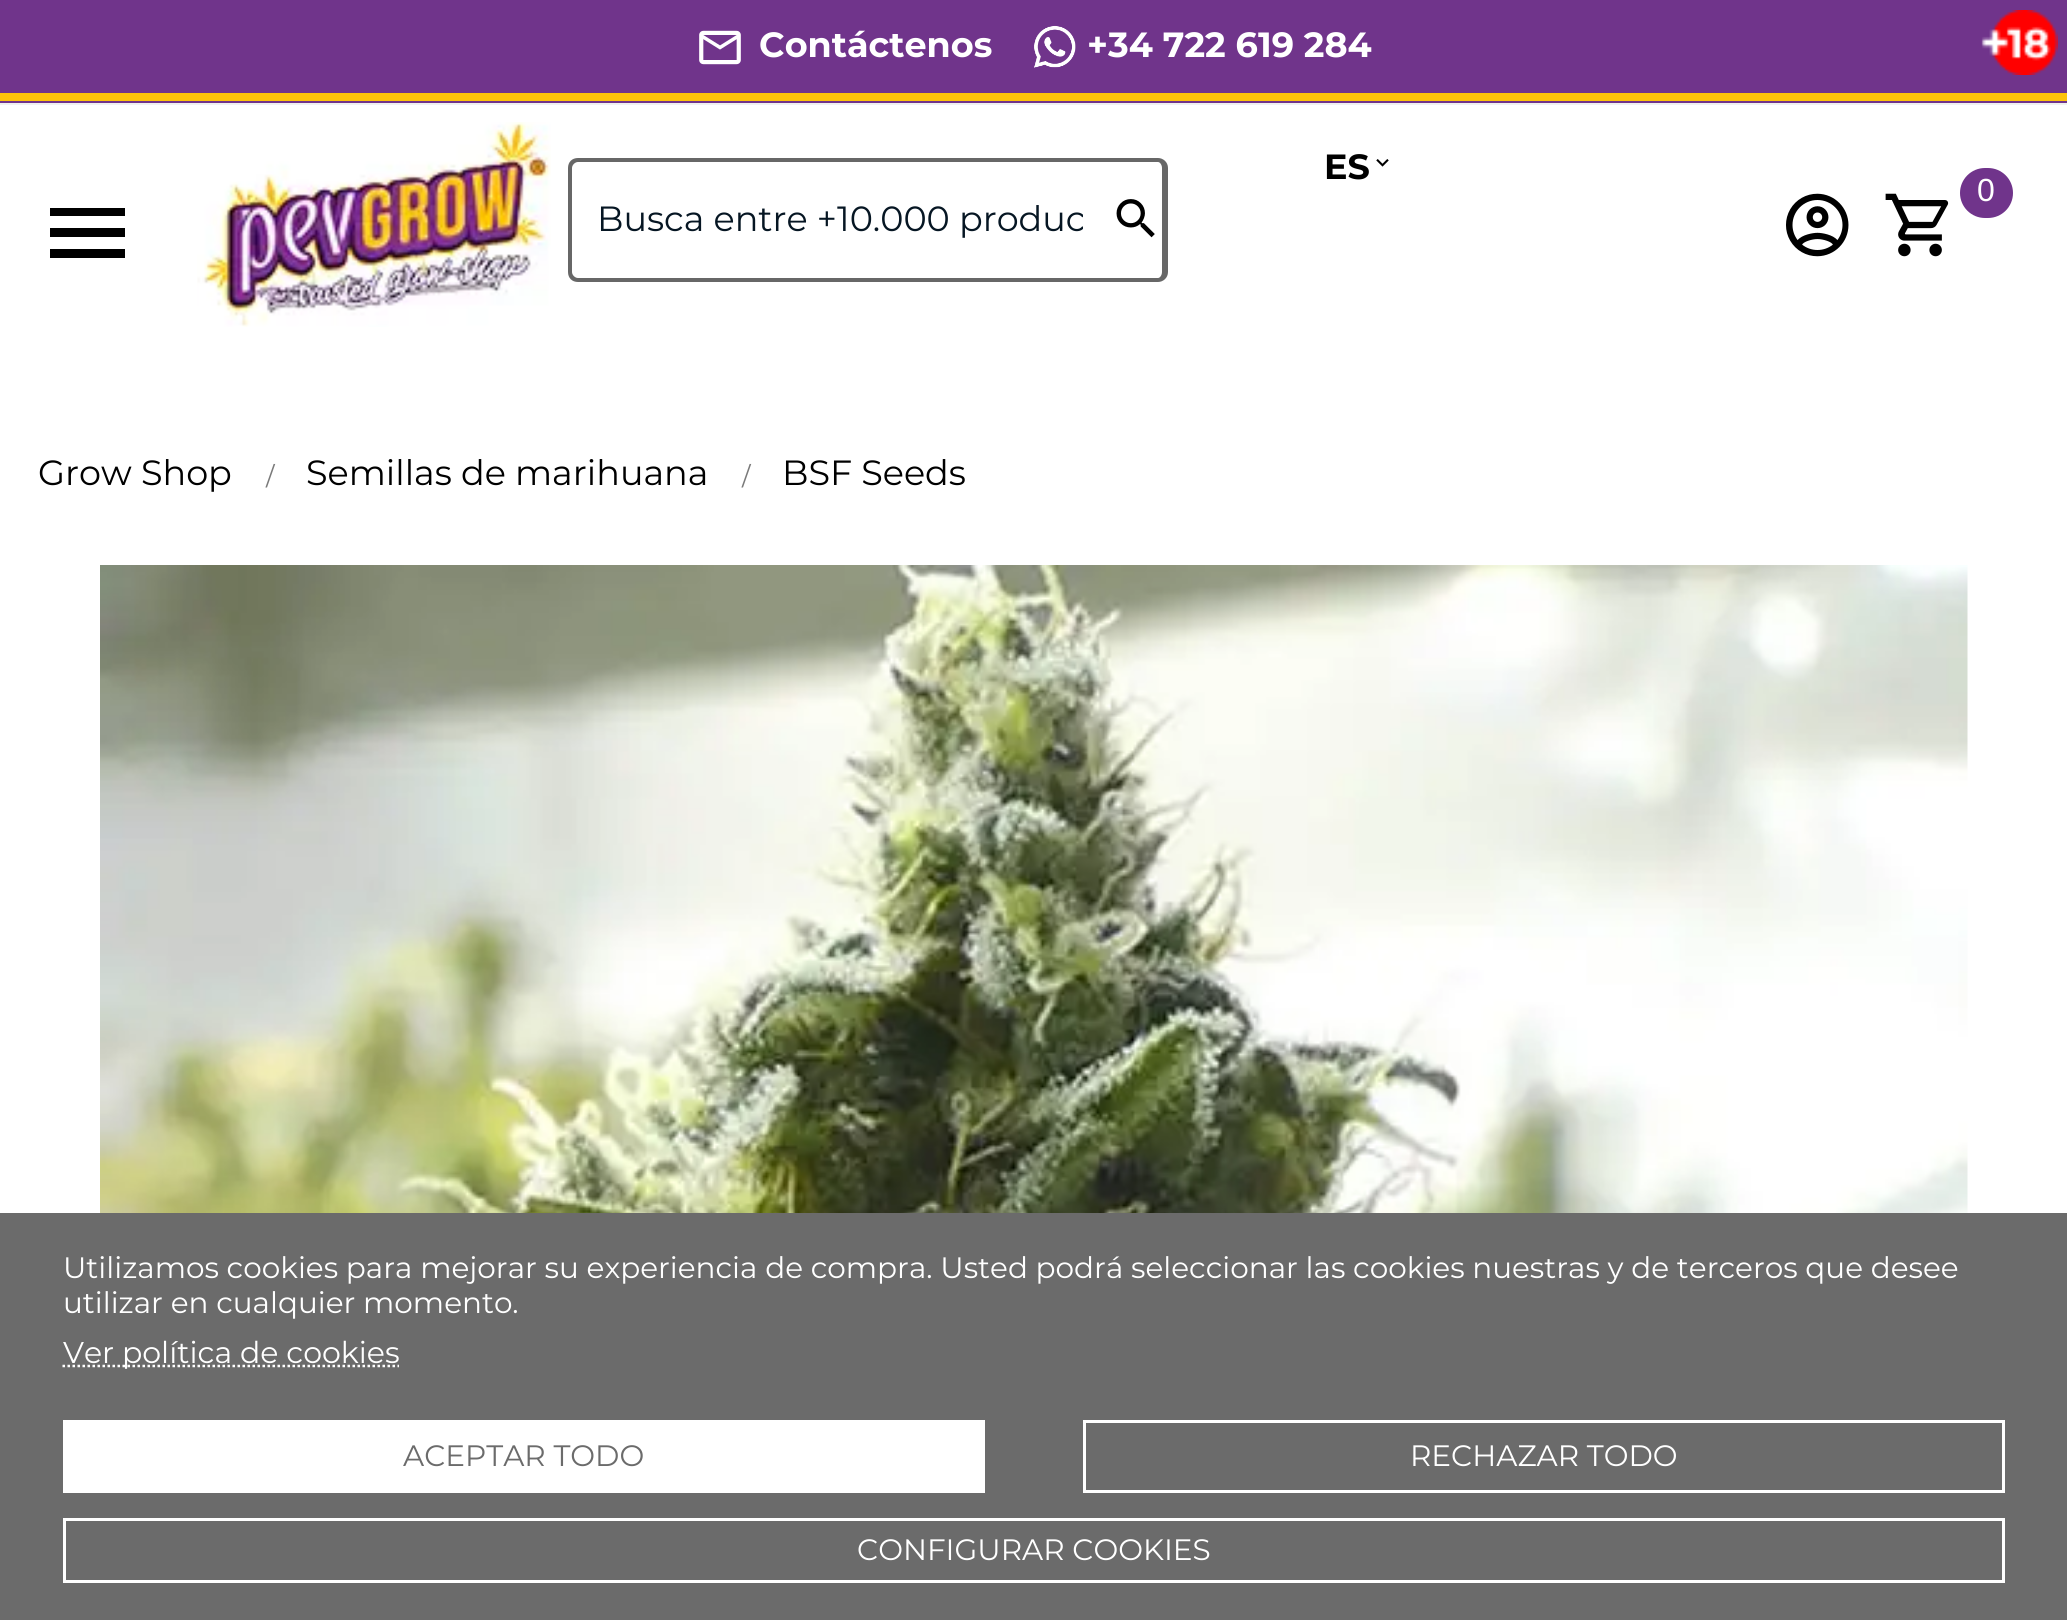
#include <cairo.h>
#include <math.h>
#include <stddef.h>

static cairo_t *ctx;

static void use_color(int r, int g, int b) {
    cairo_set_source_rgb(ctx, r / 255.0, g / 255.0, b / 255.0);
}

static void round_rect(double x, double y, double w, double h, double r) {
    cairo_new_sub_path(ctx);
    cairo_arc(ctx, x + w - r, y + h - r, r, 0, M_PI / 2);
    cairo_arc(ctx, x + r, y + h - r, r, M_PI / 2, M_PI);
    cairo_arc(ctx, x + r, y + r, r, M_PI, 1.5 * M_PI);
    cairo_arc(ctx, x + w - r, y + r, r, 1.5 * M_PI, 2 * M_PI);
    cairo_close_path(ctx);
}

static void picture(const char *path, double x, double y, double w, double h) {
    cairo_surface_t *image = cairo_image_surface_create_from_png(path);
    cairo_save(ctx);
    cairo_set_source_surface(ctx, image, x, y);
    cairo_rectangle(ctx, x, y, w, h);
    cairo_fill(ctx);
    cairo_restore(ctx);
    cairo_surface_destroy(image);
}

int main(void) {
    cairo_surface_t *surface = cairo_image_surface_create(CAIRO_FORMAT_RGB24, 2067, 1620);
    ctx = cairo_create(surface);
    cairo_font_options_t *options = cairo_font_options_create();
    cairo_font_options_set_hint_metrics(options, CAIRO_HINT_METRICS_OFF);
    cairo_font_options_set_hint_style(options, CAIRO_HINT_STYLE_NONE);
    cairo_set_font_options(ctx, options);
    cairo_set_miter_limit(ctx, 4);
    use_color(255, 255, 255);
    cairo_paint(ctx);
    use_color(112, 52, 139);
    cairo_rectangle(ctx, 0, 0, 2067, 93);
    cairo_fill(ctx);
    use_color(253, 195, 10);
    cairo_rectangle(ctx, 0, 93, 2067, 8);
    cairo_fill(ctx);
    picture("img1.png", 699, 30, 42, 35);
    cairo_select_font_face(ctx, "Montserrat", CAIRO_FONT_SLANT_NORMAL, CAIRO_FONT_WEIGHT_BOLD);
    cairo_set_font_size(ctx, 35);
    use_color(255, 255, 255);
    cairo_move_to(ctx, 759, 57);
    cairo_show_text(ctx, "Contáctenos");
    picture("img2.png", 1034, 25, 42, 43);
    cairo_move_to(ctx, 1087, 57);
    cairo_show_text(ctx, "+34 722 619 284");
    picture("img3.png", 1981, 10, 77, 65);
    use_color(112, 52, 139);
    cairo_rectangle(ctx, 0, 101, 2067, 2);
    cairo_fill(ctx);
    use_color(241, 241, 241);
    cairo_rectangle(ctx, 0, 103, 2067, 2);
    cairo_fill(ctx);
    use_color(0, 0, 0);
    cairo_new_path(ctx);
    cairo_move_to(ctx, 50, 208);
    cairo_line_to(ctx, 125, 208);
    cairo_line_to(ctx, 125, 216);
    cairo_line_to(ctx, 50, 216);
    cairo_close_path(ctx);
    cairo_move_to(ctx, 50, 237);
    cairo_line_to(ctx, 50, 228);
    cairo_line_to(ctx, 125, 228);
    cairo_line_to(ctx, 125, 237);
    cairo_close_path(ctx);
    cairo_move_to(ctx, 50, 258);
    cairo_line_to(ctx, 50, 249);
    cairo_line_to(ctx, 125, 249);
    cairo_line_to(ctx, 125, 258);
    cairo_close_path(ctx);
    cairo_fill(ctx);
    picture("img4.png", 197, 122, 354, 205);
    cairo_move_to(ctx, 1324, 179);
    cairo_show_text(ctx, "ES");
    picture("img5.png", 1376, 159, 13, 8);
    use_color(112, 52, 139);
    round_rect(1960, 168, 53, 50, 25);
    cairo_fill(ctx);
    cairo_select_font_face(ctx, "Liberation Sans", CAIRO_FONT_SLANT_NORMAL, CAIRO_FONT_WEIGHT_NORMAL);
    cairo_set_font_size(ctx, 32);
    use_color(255, 255, 255);
    cairo_move_to(ctx, 1977, 201);
    cairo_show_text(ctx, "0");
    picture("img6.png", 1885, 193, 64, 64);
    picture("img7.png", 1786, 193, 63, 64);
    use_color(103, 103, 103);
    cairo_set_fill_rule(ctx, CAIRO_FILL_RULE_EVEN_ODD);
    cairo_new_path(ctx);
    cairo_move_to(ctx, 578, 158);
    cairo_line_to(ctx, 1108, 158);
    cairo_line_to(ctx, 1108, 282);
    cairo_line_to(ctx, 578, 282);
    cairo_curve_to(ctx, 572, 282, 568, 278, 568, 272);
    cairo_line_to(ctx, 568, 168);
    cairo_curve_to(ctx, 568, 162, 572, 158, 578, 158);
    cairo_close_path(ctx);
    cairo_move_to(ctx, 578, 162);
    cairo_line_to(ctx, 1108, 162);
    cairo_line_to(ctx, 1108, 278);
    cairo_line_to(ctx, 578, 278);
    cairo_curve_to(ctx, 575, 278, 572, 275, 572, 272);
    cairo_line_to(ctx, 572, 168);
    cairo_curve_to(ctx, 572, 165, 575, 162, 578, 162);
    cairo_close_path(ctx);
    cairo_fill(ctx);
    cairo_save(ctx);
    cairo_set_fill_rule(ctx, CAIRO_FILL_RULE_WINDING);
    cairo_rectangle(ctx, 598, 198, 485, 45);
    cairo_clip(ctx);
    cairo_select_font_face(ctx, "Montserrat", CAIRO_FONT_SLANT_NORMAL, CAIRO_FONT_WEIGHT_NORMAL);
    cairo_set_font_size(ctx, 35);
    use_color(6, 22, 35);
    cairo_move_to(ctx, 597, 231);
    cairo_show_text(ctx, "Busca entre +10.000 produc");
    cairo_restore(ctx);
    cairo_new_path(ctx);
    cairo_move_to(ctx, 1108, 158);
    cairo_line_to(ctx, 1158, 158);
    cairo_curve_to(ctx, 1163, 158, 1168, 162, 1168, 168);
    cairo_line_to(ctx, 1168, 272);
    cairo_curve_to(ctx, 1168, 278, 1163, 282, 1158, 282);
    cairo_line_to(ctx, 1108, 282);
    cairo_close_path(ctx);
    cairo_move_to(ctx, 1108, 162);
    cairo_line_to(ctx, 1158, 162);
    cairo_curve_to(ctx, 1160, 162, 1162, 165, 1162, 168);
    cairo_line_to(ctx, 1162, 272);
    cairo_curve_to(ctx, 1162, 275, 1160, 278, 1158, 278);
    cairo_line_to(ctx, 1108, 278);
    cairo_close_path(ctx);
    cairo_fill(ctx);
    picture("img8.png", 1116, 199, 39, 39);
    cairo_select_font_face(ctx, "Montserrat", CAIRO_FONT_SLANT_NORMAL, CAIRO_FONT_WEIGHT_NORMAL);
    cairo_set_font_size(ctx, 35);
    use_color(0, 0, 0);
    cairo_move_to(ctx, 38, 485);
    cairo_show_text(ctx, "Grow Shop");
    cairo_set_font_size(ctx, 25);
    use_color(122, 122, 122);
    cairo_move_to(ctx, 266, 485);
    cairo_show_text(ctx, "/");
    cairo_set_font_size(ctx, 35);
    use_color(0, 0, 0);
    cairo_move_to(ctx, 306, 485);
    cairo_show_text(ctx, "Semillas de marihuana");
    cairo_set_font_size(ctx, 25);
    use_color(122, 122, 122);
    cairo_move_to(ctx, 742, 485);
    cairo_show_text(ctx, "/");
    cairo_set_font_size(ctx, 35);
    use_color(0, 0, 0);
    cairo_move_to(ctx, 782, 485);
    cairo_show_text(ctx, "BSF Seeds");
    picture("img9.png", 100, 565, 1868, 648);
    use_color(107, 107, 107);
    cairo_rectangle(ctx, 0, 1213, 2067, 407);
    cairo_fill(ctx);
    cairo_set_font_size(ctx, 29.5);
    use_color(255, 255, 255);
    cairo_move_to(ctx, 63, 1278);
    cairo_show_text(ctx, "Utilizamos cookies para mejorar su experiencia de compra. Usted podrá seleccionar las cookies nuestras y de terceros que desee");
    cairo_move_to(ctx, 63, 1313);
    cairo_show_text(ctx, "utilizar en cualquier momento.");
    cairo_new_path(ctx);
    cairo_move_to(ctx, 62.5, 1366);
    cairo_line_to(ctx, 399, 1366);
    cairo_set_line_width(ctx, 2.5);
    cairo_set_dash(ctx, (double[]){2.5, 2.5}, 2, 0);
    cairo_stroke(ctx);
    cairo_set_font_size(ctx, 30);
    cairo_move_to(ctx, 63, 1363);
    cairo_show_text(ctx, "Ver política de cookies");
    cairo_rectangle(ctx, 63, 1420, 922, 73);
    cairo_fill(ctx);
    cairo_set_font_size(ctx, 29.5);
    use_color(107, 107, 107);
    cairo_move_to(ctx, 403, 1466);
    cairo_show_text(ctx, "ACEPTAR TODO");
    cairo_rectangle(ctx, 1084.5, 1421.5, 919, 70);
    use_color(255, 255, 255);
    cairo_set_line_width(ctx, 3);
    cairo_set_dash(ctx, NULL, 0, 0);
    cairo_stroke(ctx);
    cairo_move_to(ctx, 1410, 1466);
    cairo_show_text(ctx, "RECHAZAR TODO");
    cairo_rectangle(ctx, 64.5, 1519.5, 1939, 62);
    cairo_stroke(ctx);
    cairo_move_to(ctx, 857, 1560);
    cairo_show_text(ctx, "CONFIGURAR COOKIES");
    cairo_surface_write_to_png(surface, "result.png");
    cairo_font_options_destroy(options);
    cairo_destroy(ctx);
    cairo_surface_destroy(surface);
    return 0;
}
